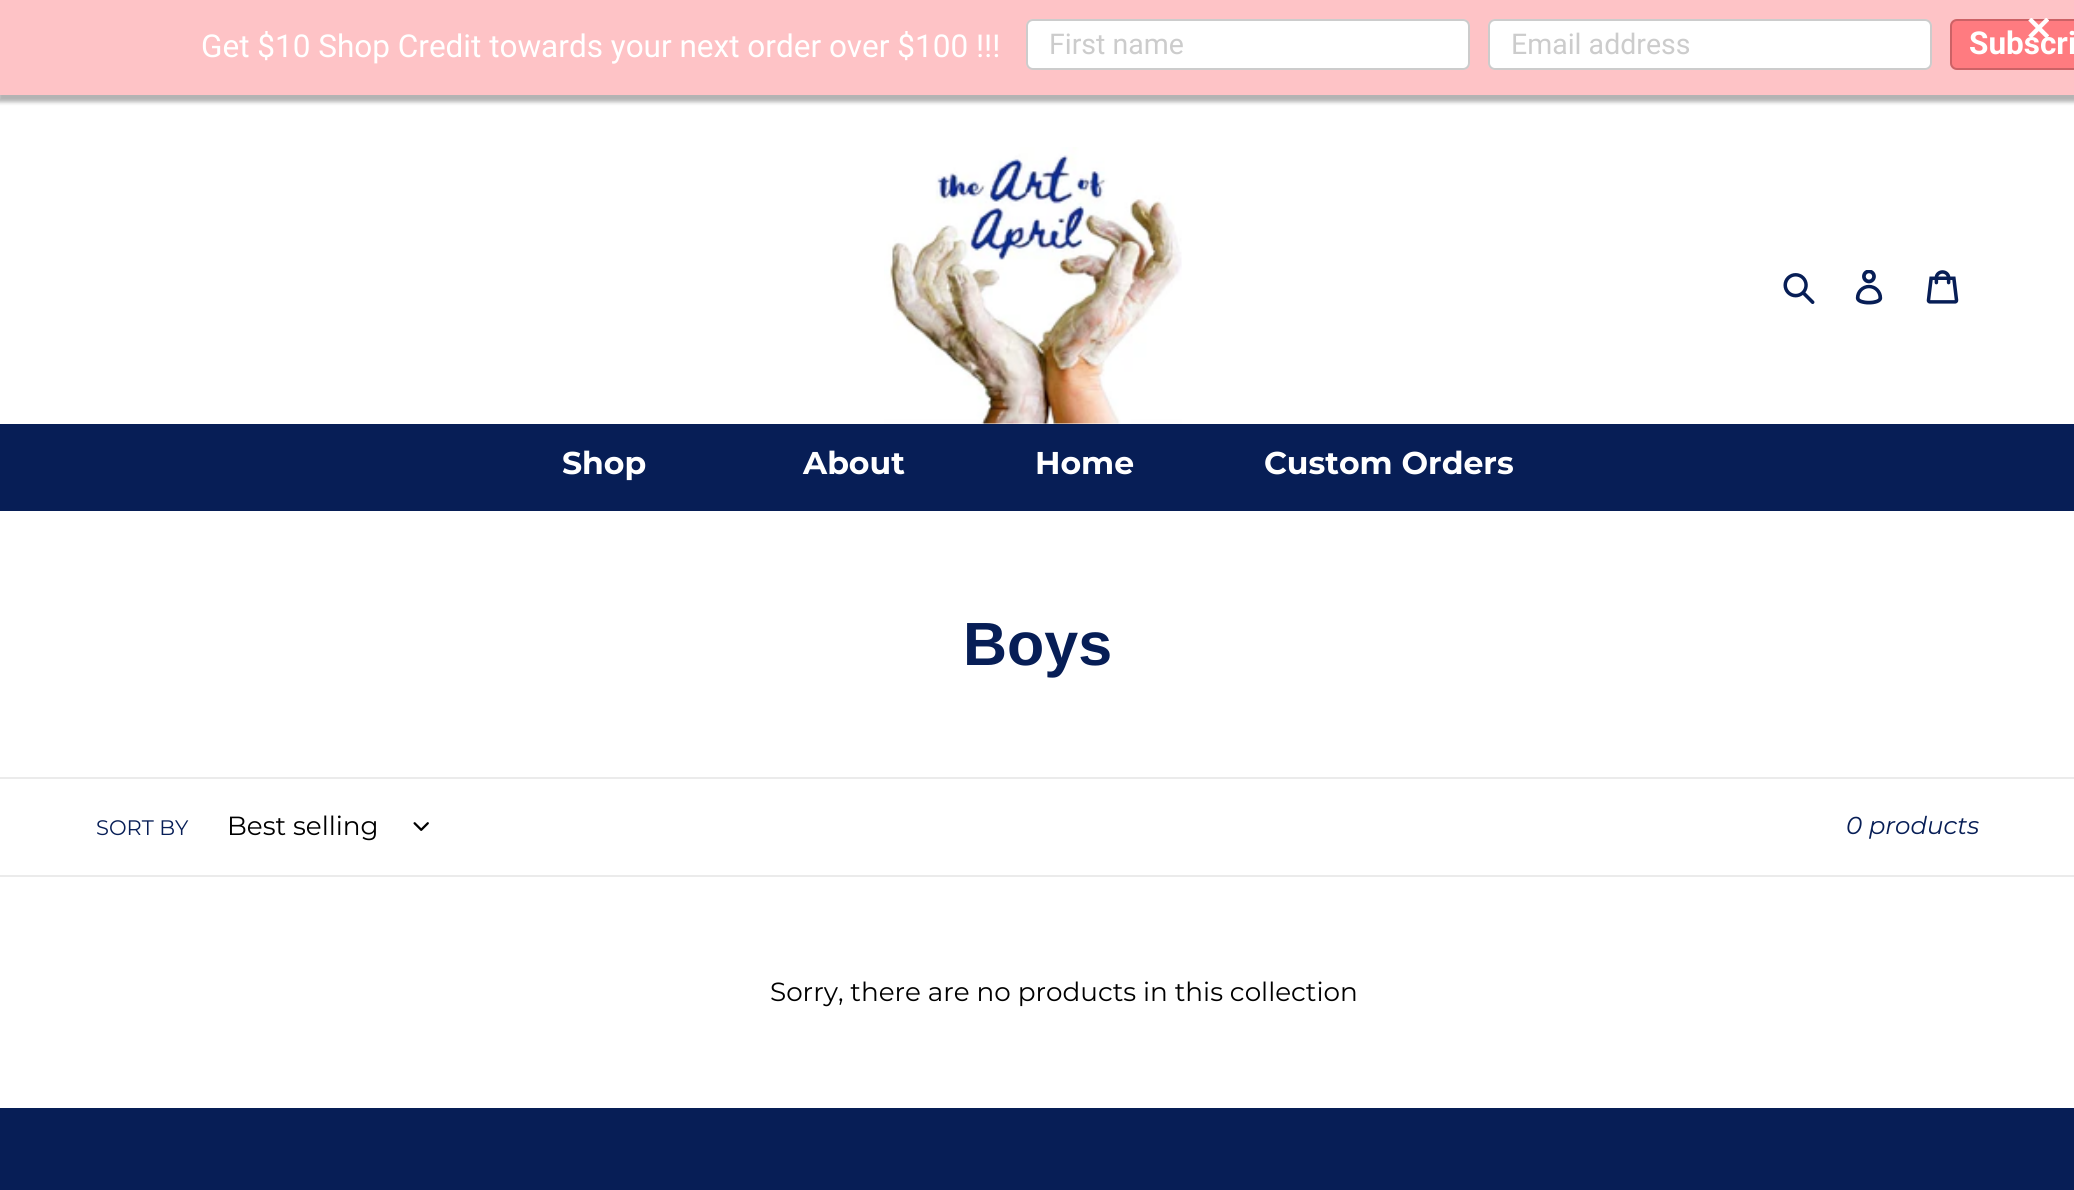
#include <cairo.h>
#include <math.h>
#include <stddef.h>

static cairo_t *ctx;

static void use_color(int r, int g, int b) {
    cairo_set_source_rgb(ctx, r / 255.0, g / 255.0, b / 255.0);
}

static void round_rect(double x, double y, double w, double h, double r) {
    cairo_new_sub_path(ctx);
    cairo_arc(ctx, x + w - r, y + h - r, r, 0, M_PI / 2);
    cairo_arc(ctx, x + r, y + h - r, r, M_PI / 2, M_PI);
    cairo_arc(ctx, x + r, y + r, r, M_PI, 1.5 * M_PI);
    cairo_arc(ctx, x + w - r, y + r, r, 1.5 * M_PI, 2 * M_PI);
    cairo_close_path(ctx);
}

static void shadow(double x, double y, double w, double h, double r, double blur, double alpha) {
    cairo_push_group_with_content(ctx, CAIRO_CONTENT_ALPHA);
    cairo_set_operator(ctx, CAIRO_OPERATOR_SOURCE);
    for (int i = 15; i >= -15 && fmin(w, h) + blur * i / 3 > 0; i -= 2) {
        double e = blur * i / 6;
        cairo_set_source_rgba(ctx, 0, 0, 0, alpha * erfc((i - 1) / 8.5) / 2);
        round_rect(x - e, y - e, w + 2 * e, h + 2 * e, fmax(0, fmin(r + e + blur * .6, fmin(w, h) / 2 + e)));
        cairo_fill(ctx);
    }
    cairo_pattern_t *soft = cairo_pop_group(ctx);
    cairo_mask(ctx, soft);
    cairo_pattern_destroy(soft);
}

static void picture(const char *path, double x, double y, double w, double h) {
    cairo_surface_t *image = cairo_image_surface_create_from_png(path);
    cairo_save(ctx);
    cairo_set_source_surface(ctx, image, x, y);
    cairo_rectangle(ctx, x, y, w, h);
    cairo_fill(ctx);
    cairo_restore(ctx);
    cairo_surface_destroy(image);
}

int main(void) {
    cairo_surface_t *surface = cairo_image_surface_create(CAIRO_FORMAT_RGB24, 2074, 1190);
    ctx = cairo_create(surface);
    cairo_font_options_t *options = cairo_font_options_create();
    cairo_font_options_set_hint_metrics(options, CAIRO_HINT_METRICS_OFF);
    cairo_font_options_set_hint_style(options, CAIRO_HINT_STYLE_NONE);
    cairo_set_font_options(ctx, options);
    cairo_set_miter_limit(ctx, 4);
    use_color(255, 255, 255);
    cairo_paint(ctx);
    use_color(0, 0, 0);
    shadow(-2, 4, 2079, 98, 0, 2, 0.3);
    use_color(254, 195, 198);
    cairo_rectangle(ctx, 0, 0, 2074, 95);
    cairo_fill(ctx);
    use_color(255, 123, 128);
    cairo_new_path(ctx);
    cairo_move_to(ctx, 1957, 19);
    cairo_line_to(ctx, 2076, 19);
    cairo_line_to(ctx, 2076, 70);
    cairo_line_to(ctx, 1957, 70);
    cairo_curve_to(ctx, 1953, 70, 1950, 67, 1950, 63);
    cairo_line_to(ctx, 1950, 26);
    cairo_curve_to(ctx, 1950, 22, 1953, 19, 1957, 19);
    cairo_close_path(ctx);
    cairo_fill(ctx);
    round_rect(1951, 20, 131, 49, 6);
    cairo_set_source_rgba(ctx, 0, 0, 0, 0.2);
    cairo_stroke(ctx);
    cairo_select_font_face(ctx, "Roboto", CAIRO_FONT_SLANT_NORMAL, CAIRO_FONT_WEIGHT_BOLD);
    cairo_set_font_size(ctx, 31.5);
    use_color(255, 255, 255);
    cairo_move_to(ctx, 1969, 54);
    cairo_show_text(ctx, "Subscri");
    picture("img1.png", 2028, 18, 21, 20);
    cairo_select_font_face(ctx, "Roboto", CAIRO_FONT_SLANT_NORMAL, CAIRO_FONT_WEIGHT_NORMAL);
    cairo_move_to(ctx, 201, 57);
    cairo_show_text(ctx, "Get $10 Shop Credit towards your next order over $100 !!!");
    round_rect(1026, 19, 444, 51, 7);
    cairo_fill(ctx);
    round_rect(1027, 20, 442, 49, 6);
    cairo_set_source_rgba(ctx, 0, 0, 0, 0.2);
    cairo_stroke(ctx);
    cairo_set_font_size(ctx, 28.5);
    use_color(204, 204, 204);
    cairo_move_to(ctx, 1049, 54);
    cairo_show_text(ctx, "First name");
    use_color(255, 255, 255);
    round_rect(1488, 19, 444, 51, 7);
    cairo_fill(ctx);
    round_rect(1489, 20, 442, 49, 6);
    cairo_set_source_rgba(ctx, 0, 0, 0, 0.2);
    cairo_stroke(ctx);
    use_color(204, 204, 204);
    cairo_move_to(ctx, 1511, 54);
    cairo_show_text(ctx, "Email address");
    picture("img2.png", 884, 147, 298, 277);
    picture("img3.png", 1783, 273, 32, 31);
    picture("img4.png", 1855, 270, 28, 35);
    picture("img5.png", 1926, 270, 33, 34);
    use_color(7, 30, 86);
    cairo_rectangle(ctx, 0, 424, 2074, 87);
    cairo_fill(ctx);
    cairo_select_font_face(ctx, "Montserrat", CAIRO_FONT_SLANT_NORMAL, CAIRO_FONT_WEIGHT_BOLD);
    cairo_set_font_size(ctx, 31.5);
    use_color(255, 255, 255);
    cairo_move_to(ctx, 562, 474);
    cairo_show_text(ctx, "Shop");
    cairo_move_to(ctx, 803, 474);
    cairo_show_text(ctx, "About");
    cairo_move_to(ctx, 1035, 474);
    cairo_show_text(ctx, "Home");
    cairo_move_to(ctx, 1264, 474);
    cairo_show_text(ctx, "Custom Orders");
    cairo_select_font_face(ctx, "Liberation Sans", CAIRO_FONT_SLANT_NORMAL, CAIRO_FONT_WEIGHT_BOLD);
    cairo_set_font_size(ctx, 61);
    use_color(7, 30, 86);
    cairo_move_to(ctx, 963, 665);
    cairo_show_text(ctx, "Boys");
    use_color(235, 235, 235);
    cairo_rectangle(ctx, 0, 777, 2074, 2);
    cairo_fill(ctx);
    cairo_rectangle(ctx, 0, 875, 2074, 2);
    cairo_fill(ctx);
    cairo_select_font_face(ctx, "Montserrat", CAIRO_FONT_SLANT_NORMAL, CAIRO_FONT_WEIGHT_NORMAL);
    cairo_set_font_size(ctx, 21);
    use_color(7, 30, 86);
    cairo_move_to(ctx, 96, 835);
    cairo_show_text(ctx, "SORT BY");
    cairo_set_font_size(ctx, 26.25);
    use_color(0, 0, 0);
    cairo_move_to(ctx, 227, 835);
    cairo_show_text(ctx, "Best selling");
    picture("img6.png", 413, 822, 16, 9);
    cairo_select_font_face(ctx, "Montserrat", CAIRO_FONT_SLANT_ITALIC, CAIRO_FONT_WEIGHT_NORMAL);
    cairo_set_font_size(ctx, 24.5);
    use_color(7, 30, 86);
    cairo_move_to(ctx, 1846, 834);
    cairo_show_text(ctx, "0 products");
    cairo_select_font_face(ctx, "Montserrat", CAIRO_FONT_SLANT_NORMAL, CAIRO_FONT_WEIGHT_NORMAL);
    cairo_set_font_size(ctx, 26.25);
    use_color(0, 0, 0);
    cairo_move_to(ctx, 770, 1001);
    cairo_show_text(ctx, "Sorry, there are no products in this collection");
    use_color(7, 30, 86);
    cairo_rectangle(ctx, 0, 1108, 2074, 82);
    cairo_fill(ctx);
    cairo_surface_write_to_png(surface, "result.png");
    cairo_font_options_destroy(options);
    cairo_destroy(ctx);
    cairo_surface_destroy(surface);
    return 0;
}
